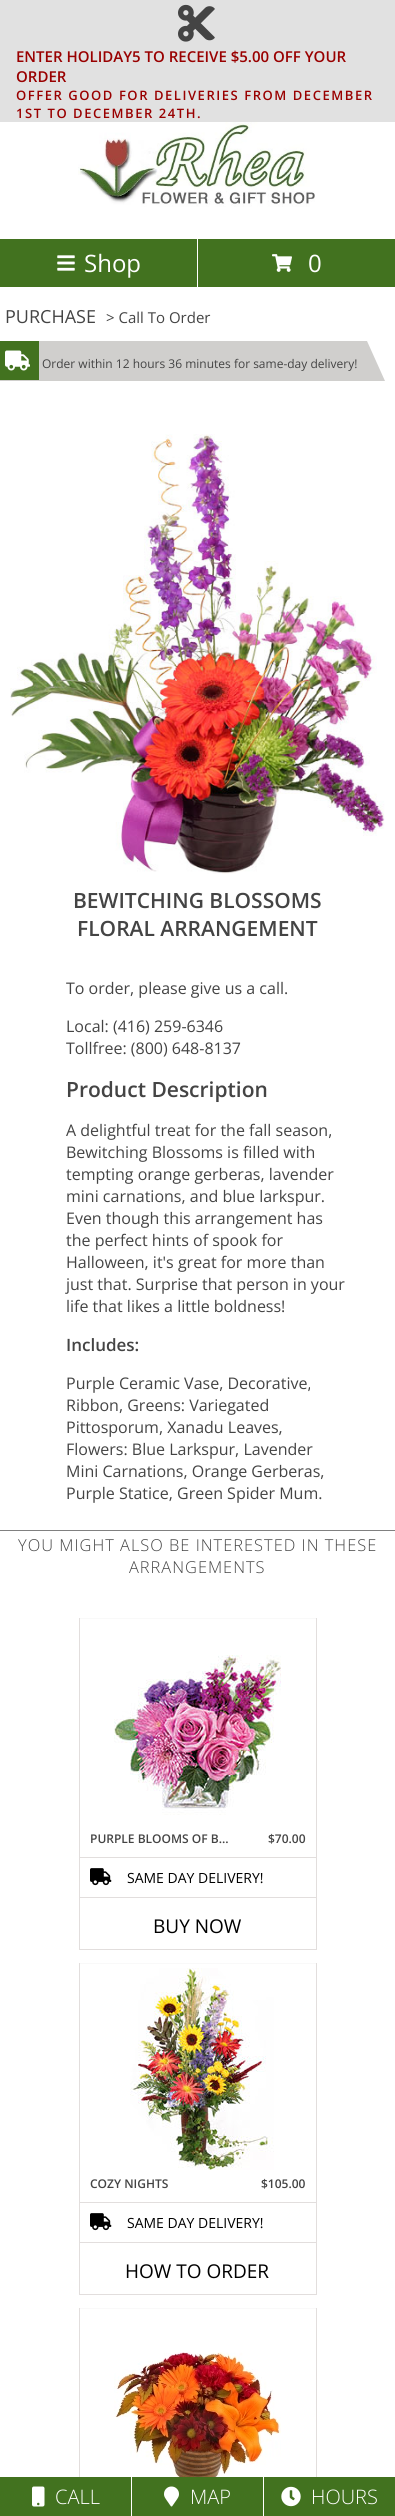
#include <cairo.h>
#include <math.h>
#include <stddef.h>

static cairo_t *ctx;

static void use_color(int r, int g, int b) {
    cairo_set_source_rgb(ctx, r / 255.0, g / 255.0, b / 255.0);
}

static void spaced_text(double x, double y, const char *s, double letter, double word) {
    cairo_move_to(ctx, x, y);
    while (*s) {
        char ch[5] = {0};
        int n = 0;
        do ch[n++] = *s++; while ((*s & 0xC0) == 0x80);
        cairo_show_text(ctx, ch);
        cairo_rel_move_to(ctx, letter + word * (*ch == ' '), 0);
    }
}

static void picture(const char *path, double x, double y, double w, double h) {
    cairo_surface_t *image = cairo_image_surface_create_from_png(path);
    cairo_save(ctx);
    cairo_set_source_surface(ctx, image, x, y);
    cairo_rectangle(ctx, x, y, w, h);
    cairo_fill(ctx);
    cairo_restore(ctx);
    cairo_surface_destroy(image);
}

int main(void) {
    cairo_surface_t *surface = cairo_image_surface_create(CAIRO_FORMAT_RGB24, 395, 2516);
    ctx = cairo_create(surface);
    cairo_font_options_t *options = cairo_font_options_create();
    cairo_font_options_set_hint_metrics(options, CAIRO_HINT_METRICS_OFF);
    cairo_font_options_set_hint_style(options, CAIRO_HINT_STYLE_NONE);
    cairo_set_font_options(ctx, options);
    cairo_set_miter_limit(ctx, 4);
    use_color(255, 255, 255);
    cairo_paint(ctx);
    use_color(225, 225, 225);
    cairo_rectangle(ctx, 0, 0, 395, 122);
    cairo_fill(ctx);
    picture("img1.png", 178, 4, 37, 38);
    cairo_select_font_face(ctx, "Open Sans SemiBold", CAIRO_FONT_SLANT_NORMAL, CAIRO_FONT_WEIGHT_NORMAL);
    cairo_set_font_size(ctx, 15);
    use_color(153, 0, 0);
    cairo_move_to(ctx, 16, 62);
    cairo_show_text(ctx, "ENTER HOLIDAY5 TO RECEIVE $5.00 OFF YOUR");
    cairo_move_to(ctx, 16, 82);
    cairo_show_text(ctx, "ORDER");
    cairo_set_font_size(ctx, 13);
    spaced_text(16, 100, "OFFER GOOD FOR DELIVERIES FROM DECEMBER", 1.55, 0);
    spaced_text(16, 118, "1ST TO DECEMBER 24TH.", 1.55, 0);
    picture("img2.png", 78, 122, 237, 85);
    use_color(66, 114, 31);
    cairo_rectangle(ctx, 0, 239, 197, 48);
    cairo_fill(ctx);
    picture("img3.png", 57, 255, 18, 16);
    cairo_select_font_face(ctx, "Open Sans", CAIRO_FONT_SLANT_NORMAL, CAIRO_FONT_WEIGHT_NORMAL);
    cairo_set_font_size(ctx, 24);
    use_color(255, 255, 255);
    cairo_move_to(ctx, 84, 272);
    cairo_show_text(ctx, "Shop");
    use_color(66, 114, 31);
    cairo_rectangle(ctx, 198, 239, 197, 48);
    cairo_fill(ctx);
    picture("img4.png", 272, 254, 20, 18);
    use_color(255, 255, 255);
    cairo_move_to(ctx, 308, 272);
    cairo_show_text(ctx, "0");
    cairo_set_font_size(ctx, 18);
    use_color(68, 68, 68);
    cairo_move_to(ctx, 5, 323);
    cairo_show_text(ctx, "PURCHASE");
    cairo_set_font_size(ctx, 15);
    cairo_move_to(ctx, 106, 323);
    cairo_show_text(ctx, "> Call To Order");
    use_color(208, 207, 205);
    cairo_new_path(ctx);
    cairo_move_to(ctx, 385, 381);
    cairo_line_to(ctx, 0, 381);
    cairo_line_to(ctx, 0, 341);
    cairo_line_to(ctx, 367, 341);
    cairo_close_path(ctx);
    cairo_fill(ctx);
    use_color(66, 114, 31);
    cairo_rectangle(ctx, 0, 341, 39, 39);
    cairo_fill(ctx);
    picture("img5.png", 5, 350, 25, 21);
    cairo_set_font_size(ctx, 12);
    use_color(68, 68, 68);
    cairo_move_to(ctx, 42, 368);
    cairo_show_text(ctx, "Order within 12 hours 36 minutes for same-day delivery!");
    picture("img6.png", 10, 434, 375, 440);
    cairo_select_font_face(ctx, "Open Sans SemiBold", CAIRO_FONT_SLANT_NORMAL, CAIRO_FONT_WEIGHT_NORMAL);
    cairo_set_font_size(ctx, 21);
    cairo_move_to(ctx, 73, 908);
    cairo_show_text(ctx, "BEWITCHING BLOSSOMS");
    cairo_move_to(ctx, 77, 936);
    cairo_show_text(ctx, "FLORAL ARRANGEMENT");
    cairo_select_font_face(ctx, "Open Sans", CAIRO_FONT_SLANT_NORMAL, CAIRO_FONT_WEIGHT_NORMAL);
    cairo_set_font_size(ctx, 16);
    cairo_move_to(ctx, 66, 994);
    cairo_show_text(ctx, "To order, please give us a call.");
    cairo_move_to(ctx, 66, 1032);
    cairo_show_text(ctx, "Local: (416) 259-6346");
    cairo_move_to(ctx, 66, 1054);
    cairo_show_text(ctx, "Tollfree: (800) 648-8137");
    cairo_select_font_face(ctx, "Open Sans SemiBold", CAIRO_FONT_SLANT_NORMAL, CAIRO_FONT_WEIGHT_NORMAL);
    cairo_set_font_size(ctx, 21);
    cairo_move_to(ctx, 66, 1097);
    cairo_show_text(ctx, "Product Description");
    cairo_select_font_face(ctx, "Open Sans", CAIRO_FONT_SLANT_NORMAL, CAIRO_FONT_WEIGHT_NORMAL);
    cairo_set_font_size(ctx, 16);
    cairo_move_to(ctx, 66, 1136);
    cairo_show_text(ctx, "A delightful treat for the fall season,");
    cairo_move_to(ctx, 66, 1158);
    cairo_show_text(ctx, "Bewitching Blossoms is filled with");
    cairo_move_to(ctx, 66, 1180);
    cairo_show_text(ctx, "tempting orange gerberas, lavender");
    cairo_move_to(ctx, 66, 1202);
    cairo_show_text(ctx, "mini carnations, and blue larkspur.");
    cairo_move_to(ctx, 66, 1224);
    cairo_show_text(ctx, "Even though this arrangement has");
    cairo_move_to(ctx, 66, 1246);
    cairo_show_text(ctx, "the perfect hints of spook for");
    cairo_move_to(ctx, 66, 1268);
    cairo_show_text(ctx, "Halloween, it's great for more than");
    cairo_move_to(ctx, 66, 1290);
    cairo_show_text(ctx, "just that. Surprise that person in your");
    cairo_move_to(ctx, 66, 1312);
    cairo_show_text(ctx, "life that likes a little boldness!");
    cairo_select_font_face(ctx, "Open Sans SemiBold", CAIRO_FONT_SLANT_NORMAL, CAIRO_FONT_WEIGHT_NORMAL);
    cairo_set_font_size(ctx, 17);
    cairo_move_to(ctx, 66, 1351);
    cairo_show_text(ctx, "Includes:");
    cairo_select_font_face(ctx, "Open Sans", CAIRO_FONT_SLANT_NORMAL, CAIRO_FONT_WEIGHT_NORMAL);
    cairo_set_font_size(ctx, 16);
    cairo_move_to(ctx, 66, 1389);
    cairo_show_text(ctx, "Purple Ceramic Vase, Decorative,");
    cairo_move_to(ctx, 66, 1411);
    cairo_show_text(ctx, "Ribbon, Greens: Variegated");
    cairo_move_to(ctx, 66, 1433);
    cairo_show_text(ctx, "Pittosporum, Xanadu Leaves,");
    cairo_move_to(ctx, 66, 1455);
    cairo_show_text(ctx, "Flowers: Blue Larkspur, Lavender");
    cairo_move_to(ctx, 66, 1477);
    cairo_show_text(ctx, "Mini Carnations, Orange Gerberas,");
    cairo_move_to(ctx, 66, 1499);
    cairo_show_text(ctx, "Purple Statice, Green Spider Mum.");
    use_color(128, 128, 128);
    cairo_rectangle(ctx, 0, 1530, 395, 1);
    cairo_fill(ctx);
    cairo_select_font_face(ctx, "Open Sans Light", CAIRO_FONT_SLANT_NORMAL, CAIRO_FONT_WEIGHT_NORMAL);
    cairo_set_font_size(ctx, 16.4);
    use_color(68, 68, 68);
    spaced_text(18, 1551, "YOU MIGHT ALSO BE INTERESTED IN THESE", 1, 0);
    spaced_text(129, 1573, "ARRANGEMENTS", 1, 0);
    use_color(249, 249, 249);
    cairo_rectangle(ctx, 79, 1618, 238, 1);
    cairo_fill(ctx);
    use_color(226, 222, 221);
    cairo_rectangle(ctx, 316, 1618, 1, 332);
    cairo_fill(ctx);
    cairo_rectangle(ctx, 79, 1949, 238, 1);
    cairo_fill(ctx);
    cairo_rectangle(ctx, 79, 1618, 1, 332);
    cairo_fill(ctx);
    picture("img7.png", 114, 1655, 167, 160);
    cairo_select_font_face(ctx, "Open Sans SemiBold", CAIRO_FONT_SLANT_NORMAL, CAIRO_FONT_WEIGHT_NORMAL);
    cairo_set_font_size(ctx, 12);
    use_color(68, 68, 68);
    cairo_move_to(ctx, 90, 1843);
    cairo_show_text(ctx, "PURPLE BLOOMS OF B…");
    cairo_move_to(ctx, 268, 1843);
    cairo_show_text(ctx, "$70.00");
    use_color(226, 222, 221);
    cairo_rectangle(ctx, 80, 1857, 236, 1);
    cairo_fill(ctx);
    picture("img8.png", 90, 1868, 22, 18);
    cairo_select_font_face(ctx, "Open Sans", CAIRO_FONT_SLANT_NORMAL, CAIRO_FONT_WEIGHT_NORMAL);
    cairo_set_font_size(ctx, 14);
    use_color(0, 0, 0);
    cairo_move_to(ctx, 127, 1883);
    cairo_show_text(ctx, "SAME DAY DELIVERY!");
    use_color(226, 222, 221);
    cairo_rectangle(ctx, 80, 1897, 236, 1);
    cairo_fill(ctx);
    cairo_set_font_size(ctx, 19);
    use_color(0, 0, 0);
    cairo_move_to(ctx, 153, 1933);
    cairo_show_text(ctx, "BUY NOW");
    use_color(249, 249, 249);
    cairo_rectangle(ctx, 79, 1963, 238, 1);
    cairo_fill(ctx);
    use_color(226, 222, 221);
    cairo_rectangle(ctx, 316, 1963, 1, 332);
    cairo_fill(ctx);
    cairo_rectangle(ctx, 79, 2294, 238, 1);
    cairo_fill(ctx);
    cairo_rectangle(ctx, 79, 1963, 1, 332);
    cairo_fill(ctx);
    picture("img9.png", 130, 1968, 144, 202);
    cairo_select_font_face(ctx, "Open Sans SemiBold", CAIRO_FONT_SLANT_NORMAL, CAIRO_FONT_WEIGHT_NORMAL);
    cairo_set_font_size(ctx, 12);
    use_color(68, 68, 68);
    cairo_move_to(ctx, 90, 2188);
    cairo_show_text(ctx, "COZY NIGHTS");
    cairo_move_to(ctx, 261, 2188);
    cairo_show_text(ctx, "$105.00");
    use_color(226, 222, 221);
    cairo_rectangle(ctx, 80, 2202, 236, 1);
    cairo_fill(ctx);
    picture("img8.png", 90, 2213, 22, 18);
    cairo_select_font_face(ctx, "Open Sans", CAIRO_FONT_SLANT_NORMAL, CAIRO_FONT_WEIGHT_NORMAL);
    cairo_set_font_size(ctx, 14);
    use_color(0, 0, 0);
    cairo_move_to(ctx, 127, 2228);
    cairo_show_text(ctx, "SAME DAY DELIVERY!");
    use_color(226, 222, 221);
    cairo_rectangle(ctx, 80, 2242, 236, 1);
    cairo_fill(ctx);
    cairo_set_font_size(ctx, 19);
    use_color(0, 0, 0);
    cairo_move_to(ctx, 125, 2278);
    cairo_show_text(ctx, "HOW TO ORDER");
    use_color(249, 249, 249);
    cairo_rectangle(ctx, 79, 2308, 238, 1);
    cairo_fill(ctx);
    use_color(226, 222, 221);
    cairo_rectangle(ctx, 316, 2308, 1, 169);
    cairo_fill(ctx);
    cairo_rectangle(ctx, 79, 2308, 1, 169);
    cairo_fill(ctx);
    picture("img10.png", 114, 2352, 167, 125);
    use_color(66, 114, 31);
    cairo_rectangle(ctx, 0, 2477, 131, 39);
    cairo_fill(ctx);
    picture("img11.png", 32, 2486, 13, 21);
    cairo_select_font_face(ctx, "Open Sans Light", CAIRO_FONT_SLANT_NORMAL, CAIRO_FONT_WEIGHT_NORMAL);
    cairo_set_font_size(ctx, 20);
    use_color(255, 255, 255);
    cairo_move_to(ctx, 55, 2504);
    cairo_show_text(ctx, "CALL");
    use_color(66, 114, 31);
    cairo_rectangle(ctx, 132, 2477, 131, 39);
    cairo_fill(ctx);
    picture("img12.png", 164, 2486, 15, 21);
    use_color(255, 255, 255);
    cairo_move_to(ctx, 190, 2504);
    cairo_show_text(ctx, "MAP");
    use_color(66, 114, 31);
    cairo_rectangle(ctx, 264, 2477, 131, 39);
    cairo_fill(ctx);
    picture("img13.png", 281, 2486, 20, 21);
    use_color(255, 255, 255);
    cairo_move_to(ctx, 311, 2504);
    cairo_show_text(ctx, "HOURS");
    cairo_surface_write_to_png(surface, "result.png");
    cairo_font_options_destroy(options);
    cairo_destroy(ctx);
    cairo_surface_destroy(surface);
    return 0;
}
